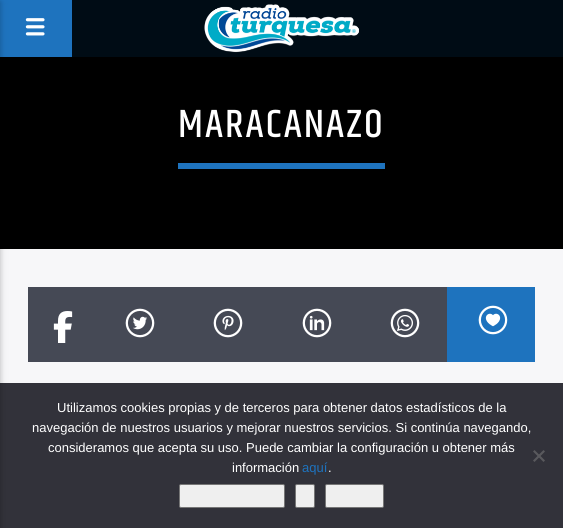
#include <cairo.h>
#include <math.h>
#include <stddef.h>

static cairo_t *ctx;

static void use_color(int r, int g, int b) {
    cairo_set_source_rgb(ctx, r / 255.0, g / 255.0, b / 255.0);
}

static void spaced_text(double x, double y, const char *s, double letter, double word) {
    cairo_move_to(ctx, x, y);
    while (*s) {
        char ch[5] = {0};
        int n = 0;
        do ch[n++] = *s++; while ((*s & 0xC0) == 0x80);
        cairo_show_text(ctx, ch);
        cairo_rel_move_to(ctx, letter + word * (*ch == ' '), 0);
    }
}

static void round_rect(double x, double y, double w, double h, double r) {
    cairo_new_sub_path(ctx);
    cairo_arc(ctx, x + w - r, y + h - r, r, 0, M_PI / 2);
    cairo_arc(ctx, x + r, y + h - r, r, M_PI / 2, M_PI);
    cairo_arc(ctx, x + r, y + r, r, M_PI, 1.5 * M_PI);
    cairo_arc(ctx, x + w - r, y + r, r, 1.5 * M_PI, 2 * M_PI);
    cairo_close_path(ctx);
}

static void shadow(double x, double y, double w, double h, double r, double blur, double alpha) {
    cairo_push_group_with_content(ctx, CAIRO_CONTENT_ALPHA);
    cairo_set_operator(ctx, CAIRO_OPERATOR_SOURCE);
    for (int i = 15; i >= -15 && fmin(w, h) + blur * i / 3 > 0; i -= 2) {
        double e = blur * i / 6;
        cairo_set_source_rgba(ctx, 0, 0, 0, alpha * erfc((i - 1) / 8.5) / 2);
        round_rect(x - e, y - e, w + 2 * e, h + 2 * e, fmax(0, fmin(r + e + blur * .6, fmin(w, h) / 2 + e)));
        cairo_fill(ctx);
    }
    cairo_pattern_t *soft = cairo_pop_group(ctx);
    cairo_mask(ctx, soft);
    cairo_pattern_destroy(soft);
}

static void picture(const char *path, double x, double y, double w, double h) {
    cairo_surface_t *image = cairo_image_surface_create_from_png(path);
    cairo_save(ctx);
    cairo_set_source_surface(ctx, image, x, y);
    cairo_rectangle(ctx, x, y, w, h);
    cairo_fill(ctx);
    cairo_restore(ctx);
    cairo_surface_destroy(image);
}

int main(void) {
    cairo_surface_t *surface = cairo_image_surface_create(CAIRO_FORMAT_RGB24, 563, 528);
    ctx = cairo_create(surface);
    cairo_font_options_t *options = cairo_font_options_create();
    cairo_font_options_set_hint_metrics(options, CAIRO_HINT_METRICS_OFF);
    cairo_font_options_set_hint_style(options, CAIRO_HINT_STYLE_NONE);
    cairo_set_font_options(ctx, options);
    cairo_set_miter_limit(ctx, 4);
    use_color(247, 247, 249);
    cairo_paint(ctx);
    use_color(0, 12, 21);
    cairo_rectangle(ctx, 72, 0, 491, 57);
    cairo_fill(ctx);
    use_color(30, 115, 190);
    cairo_rectangle(ctx, 0, 0, 72, 57);
    cairo_fill(ctx);
    picture("img1.png", 25, 18, 20, 18);
    picture("img2.png", 204, 4, 155, 49);
    use_color(0, 0, 0);
    cairo_rectangle(ctx, 0, 57, 563, 192);
    cairo_fill(ctx);
    use_color(50, 50, 58);
    cairo_rectangle(ctx, 0, 383, 563, 145);
    cairo_fill(ctx);
    use_color(0, 0, 0);
    shadow(-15, 2, 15, 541, 0, 5, 0.12);
    shadow(-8, 2, 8, 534, 0, 2.5, 0.16);
    use_color(30, 115, 190);
    cairo_rectangle(ctx, 178, 163, 207, 6);
    cairo_fill(ctx);
    cairo_select_font_face(ctx, "Khand Medium", CAIRO_FONT_SLANT_NORMAL, CAIRO_FONT_WEIGHT_NORMAL);
    cairo_set_font_size(ctx, 40);
    use_color(255, 255, 255);
    spaced_text(178, 137, "MARACANAZO", 2, 0);
    use_color(69, 73, 85);
    cairo_rectangle(ctx, 28, 287, 419, 75);
    cairo_fill(ctx);
    picture("img3.png", 53, 311, 20, 32);
    picture("img4.png", 125, 308, 30, 30);
    picture("img5.png", 213, 308, 30, 30);
    picture("img6.png", 302, 308, 30, 30);
    picture("img7.png", 390, 308, 30, 30);
    use_color(30, 115, 190);
    cairo_rectangle(ctx, 447, 287, 88, 75);
    cairo_fill(ctx);
    picture("img8.png", 478, 305, 30, 30);
    cairo_select_font_face(ctx, "Liberation Sans", CAIRO_FONT_SLANT_NORMAL, CAIRO_FONT_WEIGHT_NORMAL);
    cairo_set_font_size(ctx, 13);
    use_color(255, 255, 255);
    cairo_move_to(ctx, 57, 412);
    cairo_show_text(ctx, "Utilizamos cookies propias y de terceros para obtener datos estadísticos de la");
    cairo_move_to(ctx, 32, 432);
    cairo_show_text(ctx, "navegación de nuestros usuarios y mejorar nuestros servicios. Si continúa navegando,");
    cairo_move_to(ctx, 48, 452);
    cairo_show_text(ctx, "consideramos que acepta su uso. Puede cambiar la configuración u obtener más");
    cairo_move_to(ctx, 232, 472);
    cairo_show_text(ctx, "información");
    use_color(30, 115, 190);
    cairo_move_to(ctx, 302, 472);
    cairo_show_text(ctx, "aquí");
    use_color(255, 255, 255);
    cairo_move_to(ctx, 328, 472);
    cairo_show_text(ctx, ".");
    use_color(89, 89, 93);
    cairo_new_path(ctx);
    cairo_move_to(ctx, 543.5, 450);
    cairo_line_to(ctx, 545, 451.5);
    cairo_line_to(ctx, 534.5, 462);
    cairo_line_to(ctx, 533, 460.5);
    cairo_close_path(ctx);
    cairo_fill(ctx);
    cairo_new_path(ctx);
    cairo_move_to(ctx, 533, 451.5);
    cairo_line_to(ctx, 534.5, 450);
    cairo_line_to(ctx, 545, 460.5);
    cairo_line_to(ctx, 543.5, 462);
    cairo_close_path(ctx);
    cairo_fill(ctx);
    use_color(239, 239, 239);
    round_rect(179.5, 484.5, 105, 23, 1.5);
    cairo_fill_preserve(ctx);
    use_color(118, 118, 118);
    cairo_set_line_width(ctx, 1);
    cairo_stroke(ctx);
    use_color(239, 239, 239);
    round_rect(295.5, 484.5, 19, 23, 1.5);
    cairo_fill_preserve(ctx);
    use_color(118, 118, 118);
    cairo_stroke(ctx);
    use_color(239, 239, 239);
    round_rect(325.5, 484.5, 58, 23, 1.5);
    cairo_fill_preserve(ctx);
    use_color(118, 118, 118);
    cairo_stroke(ctx);
    cairo_surface_write_to_png(surface, "result.png");
    cairo_font_options_destroy(options);
    cairo_destroy(ctx);
    cairo_surface_destroy(surface);
    return 0;
}
